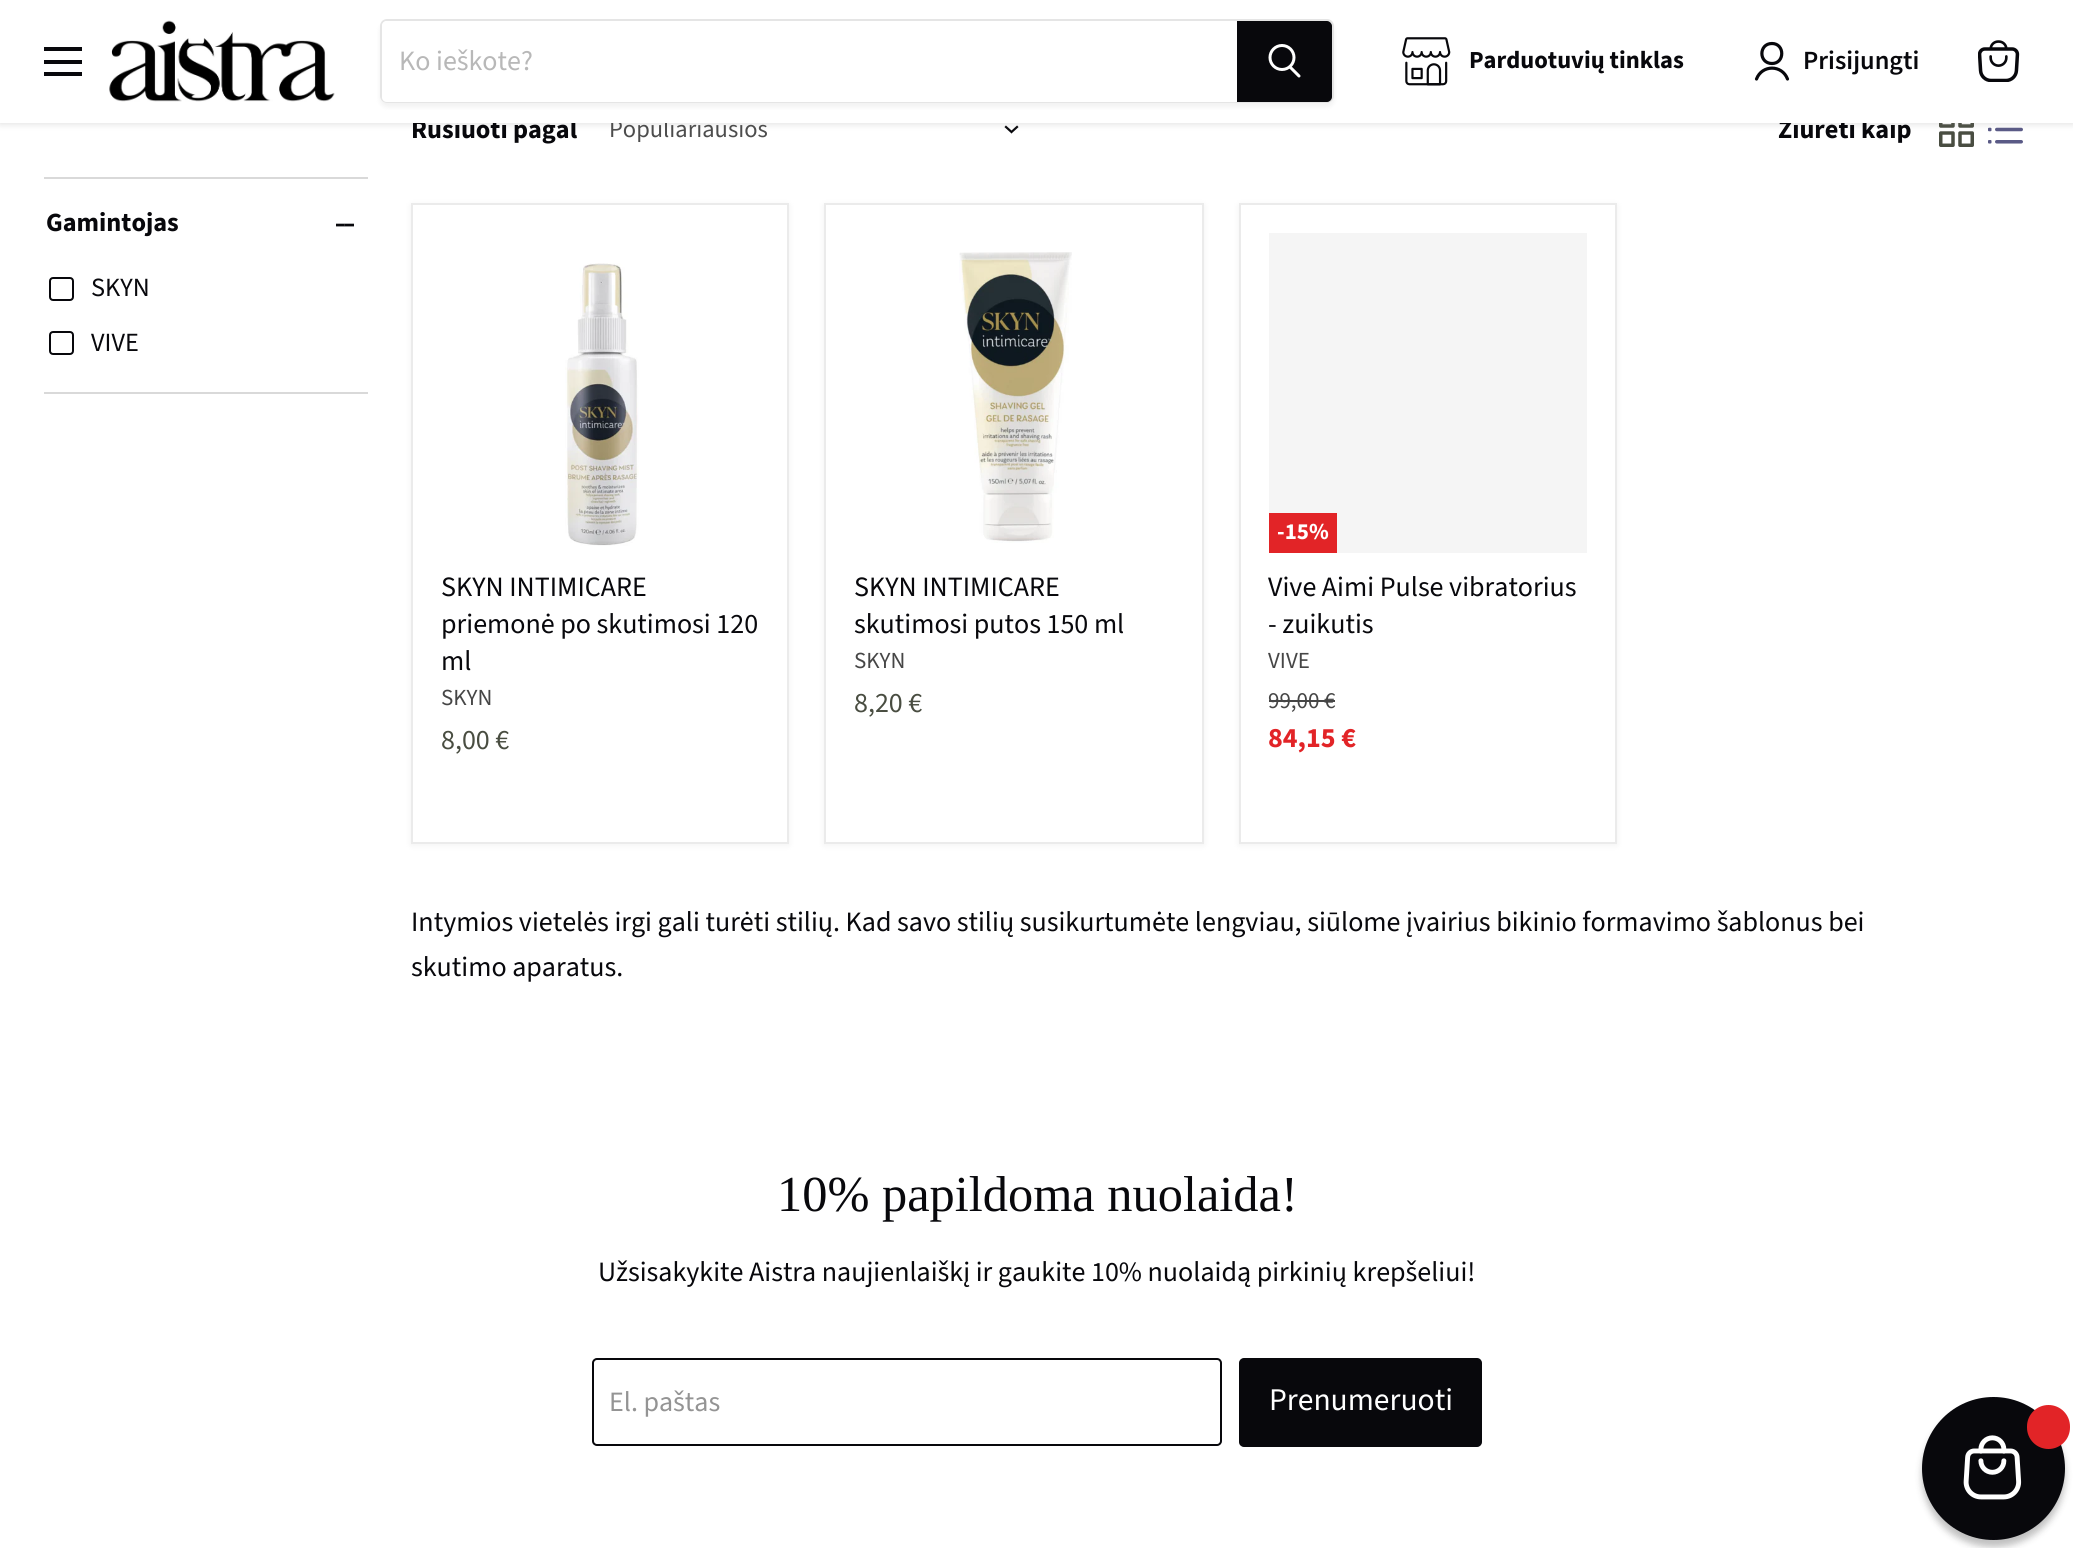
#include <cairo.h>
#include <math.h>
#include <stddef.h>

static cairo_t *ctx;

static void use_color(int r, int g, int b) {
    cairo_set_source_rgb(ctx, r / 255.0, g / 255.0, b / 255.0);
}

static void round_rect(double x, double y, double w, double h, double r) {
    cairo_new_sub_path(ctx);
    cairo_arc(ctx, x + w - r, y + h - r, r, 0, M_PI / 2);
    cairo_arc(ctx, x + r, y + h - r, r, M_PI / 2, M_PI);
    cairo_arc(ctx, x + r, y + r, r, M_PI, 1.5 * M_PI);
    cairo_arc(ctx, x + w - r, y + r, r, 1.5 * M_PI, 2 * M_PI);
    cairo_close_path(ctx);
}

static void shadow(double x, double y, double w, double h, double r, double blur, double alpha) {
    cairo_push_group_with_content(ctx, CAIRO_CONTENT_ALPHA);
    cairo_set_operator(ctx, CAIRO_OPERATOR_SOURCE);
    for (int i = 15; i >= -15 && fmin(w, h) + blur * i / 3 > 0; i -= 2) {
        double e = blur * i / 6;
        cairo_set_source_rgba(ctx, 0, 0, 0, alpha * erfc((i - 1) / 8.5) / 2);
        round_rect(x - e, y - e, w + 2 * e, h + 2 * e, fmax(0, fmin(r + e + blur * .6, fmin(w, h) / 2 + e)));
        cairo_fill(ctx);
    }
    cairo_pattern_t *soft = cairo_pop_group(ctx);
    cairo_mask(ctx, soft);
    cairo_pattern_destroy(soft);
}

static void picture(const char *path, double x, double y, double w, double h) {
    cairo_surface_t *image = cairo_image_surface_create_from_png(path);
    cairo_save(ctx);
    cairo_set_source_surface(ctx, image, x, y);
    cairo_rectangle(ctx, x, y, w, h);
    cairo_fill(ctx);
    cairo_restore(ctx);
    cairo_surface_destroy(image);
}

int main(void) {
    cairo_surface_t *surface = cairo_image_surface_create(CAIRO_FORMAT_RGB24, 2073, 1548);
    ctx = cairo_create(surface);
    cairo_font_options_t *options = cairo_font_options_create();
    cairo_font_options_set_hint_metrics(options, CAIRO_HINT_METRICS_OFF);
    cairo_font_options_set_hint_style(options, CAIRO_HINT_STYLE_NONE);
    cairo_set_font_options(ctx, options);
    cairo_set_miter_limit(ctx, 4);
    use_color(255, 255, 255);
    cairo_paint(ctx);
    cairo_new_path(ctx);
    cairo_move_to(ctx, 1011.5, 132);
    cairo_line_to(ctx, 1017, 127);
    cairo_move_to(ctx, 1011.5, 132);
    cairo_line_to(ctx, 1006, 127);
    use_color(8, 8, 12);
    cairo_set_line_width(ctx, 2.2);
    cairo_set_line_cap(ctx, CAIRO_LINE_CAP_SQUARE);
    cairo_stroke(ctx);
    picture("img5.png", 1939, 123, 35, 24);
    picture("img6.png", 1988, 127, 35, 17);
    use_color(128, 128, 128);
    shadow(0, 2, 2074, 122, 0, 3.5, 0.25);
    cairo_select_font_face(ctx, "Source Sans Pro", CAIRO_FONT_SLANT_NORMAL, CAIRO_FONT_WEIGHT_BOLD);
    cairo_set_font_size(ctx, 26.25);
    use_color(8, 8, 12);
    cairo_move_to(ctx, 411, 138);
    cairo_show_text(ctx, "Rūšiuoti pagal");
    cairo_select_font_face(ctx, "Source Sans Pro", CAIRO_FONT_SLANT_NORMAL, CAIRO_FONT_WEIGHT_NORMAL);
    cairo_set_font_size(ctx, 24.5);
    use_color(77, 77, 77);
    cairo_move_to(ctx, 609, 137);
    cairo_show_text(ctx, "Populiariausios");
    cairo_select_font_face(ctx, "Source Sans Pro", CAIRO_FONT_SLANT_NORMAL, CAIRO_FONT_WEIGHT_BOLD);
    cairo_set_font_size(ctx, 26.25);
    use_color(8, 8, 12);
    cairo_move_to(ctx, 1778, 138);
    cairo_show_text(ctx, "Žiūrėti kaip");
    use_color(255, 255, 255);
    cairo_rectangle(ctx, 0, 0, 2073, 123);
    cairo_fill(ctx);
    use_color(8, 8, 12);
    cairo_rectangle(ctx, 44, 47, 38, 4);
    cairo_fill(ctx);
    cairo_rectangle(ctx, 44, 60, 38, 4);
    cairo_fill(ctx);
    cairo_rectangle(ctx, 44, 72, 38, 4);
    cairo_fill(ctx);
    picture("img1.png", 109, 20, 226, 82);
    cairo_save(ctx);
    cairo_set_fill_rule(ctx, CAIRO_FILL_RULE_EVEN_ODD);
    cairo_new_path(ctx);
    cairo_move_to(ctx, 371, 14);
    cairo_line_to(ctx, 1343, 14);
    cairo_line_to(ctx, 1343, 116);
    cairo_line_to(ctx, 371, 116);
    cairo_close_path(ctx);
    cairo_move_to(ctx, 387, 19);
    cairo_line_to(ctx, 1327, 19);
    cairo_curve_to(ctx, 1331, 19, 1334, 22, 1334, 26);
    cairo_line_to(ctx, 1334, 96);
    cairo_curve_to(ctx, 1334, 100, 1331, 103, 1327, 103);
    cairo_line_to(ctx, 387, 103);
    cairo_curve_to(ctx, 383, 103, 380, 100, 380, 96);
    cairo_line_to(ctx, 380, 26);
    cairo_curve_to(ctx, 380, 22, 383, 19, 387, 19);
    cairo_close_path(ctx);
    cairo_clip(ctx);
    use_color(128, 128, 128);
    shadow(380, 23, 954, 84, 7, 2.5, 0.11);
    cairo_restore(ctx);
    round_rect(381, 20, 952, 82, 6);
    cairo_set_source_rgba(ctx, 0.502, 0.502, 0.502, 0.2);
    cairo_set_line_width(ctx, 2);
    cairo_set_line_cap(ctx, CAIRO_LINE_CAP_BUTT);
    cairo_stroke(ctx);
    use_color(255, 255, 255);
    cairo_new_path(ctx);
    cairo_move_to(ctx, 387, 21);
    cairo_line_to(ctx, 1237, 21);
    cairo_line_to(ctx, 1237, 102);
    cairo_line_to(ctx, 387, 102);
    cairo_curve_to(ctx, 384, 102, 382, 100, 382, 97);
    cairo_line_to(ctx, 382, 26);
    cairo_curve_to(ctx, 382, 23, 384, 21, 387, 21);
    cairo_close_path(ctx);
    cairo_fill(ctx);
    cairo_select_font_face(ctx, "Source Sans Pro", CAIRO_FONT_SLANT_NORMAL, CAIRO_FONT_WEIGHT_NORMAL);
    cairo_set_font_size(ctx, 28);
    use_color(184, 184, 184);
    cairo_move_to(ctx, 399, 70);
    cairo_show_text(ctx, "Ko ieškote?");
    use_color(8, 8, 12);
    cairo_new_path(ctx);
    cairo_move_to(ctx, 1238, 22);
    cairo_line_to(ctx, 1327, 22);
    cairo_curve_to(ctx, 1329, 22, 1331, 24, 1331, 26);
    cairo_line_to(ctx, 1331, 97);
    cairo_curve_to(ctx, 1331, 99, 1329, 101, 1327, 101);
    cairo_line_to(ctx, 1238, 101);
    cairo_close_path(ctx);
    cairo_fill_preserve(ctx);
    cairo_stroke(ctx);
    cairo_new_path(ctx);
    cairo_move_to(ctx, 1299, 76);
    cairo_line_to(ctx, 1290.5, 67.5);
    use_color(255, 255, 255);
    cairo_set_line_width(ctx, 3);
    cairo_set_line_cap(ctx, CAIRO_LINE_CAP_ROUND);
    cairo_stroke(ctx);
    cairo_arc(ctx, 1282, 57.5, 12, 0, 2 * M_PI);
    cairo_set_line_cap(ctx, CAIRO_LINE_CAP_BUTT);
    cairo_stroke(ctx);
    picture("img2.png", 1402, 37, 49, 49);
    cairo_select_font_face(ctx, "Source Sans Pro", CAIRO_FONT_SLANT_NORMAL, CAIRO_FONT_WEIGHT_BOLD);
    cairo_set_font_size(ctx, 24.5);
    use_color(8, 8, 12);
    cairo_move_to(ctx, 1469, 68);
    cairo_show_text(ctx, "Parduotuvių tinklas");
    cairo_new_path(ctx);
    cairo_move_to(ctx, 1772, 63.5);
    cairo_curve_to(ctx, 1785, 63.5, 1785, 43.5, 1772, 43.5);
    cairo_curve_to(ctx, 1758.5, 43.5, 1758.5, 63.5, 1772, 63.5);
    cairo_close_path(ctx);
    cairo_move_to(ctx, 1787.5, 79);
    cairo_curve_to(ctx, 1782, 64.5, 1762, 64.5, 1756.5, 79);
    cairo_set_line_width(ctx, 3.2);
    cairo_set_line_cap(ctx, CAIRO_LINE_CAP_ROUND);
    cairo_set_line_join(ctx, CAIRO_LINE_JOIN_ROUND);
    cairo_stroke(ctx);
    cairo_select_font_face(ctx, "Source Sans Pro SemiBold", CAIRO_FONT_SLANT_NORMAL, CAIRO_FONT_WEIGHT_NORMAL);
    cairo_set_font_size(ctx, 26.25);
    cairo_move_to(ctx, 1803, 69);
    cairo_show_text(ctx, "Prisijungti");
    picture("img3.png", 1978, 40, 42, 42);
    use_color(217, 217, 217);
    cairo_rectangle(ctx, 44, 177, 324, 2);
    cairo_fill(ctx);
    cairo_rectangle(ctx, 44, 392, 324, 2);
    cairo_fill(ctx);
    cairo_select_font_face(ctx, "Source Sans Pro", CAIRO_FONT_SLANT_NORMAL, CAIRO_FONT_WEIGHT_BOLD);
    use_color(8, 8, 12);
    cairo_move_to(ctx, 46, 231);
    cairo_show_text(ctx, "Gamintojas");
    picture("img4.png", 336, 223, 18, 4);
    round_rect(50, 278, 23, 22, 3);
    cairo_set_line_width(ctx, 2);
    cairo_set_line_cap(ctx, CAIRO_LINE_CAP_BUTT);
    cairo_set_line_join(ctx, CAIRO_LINE_JOIN_MITER);
    cairo_stroke(ctx);
    cairo_select_font_face(ctx, "Source Sans Pro", CAIRO_FONT_SLANT_NORMAL, CAIRO_FONT_WEIGHT_NORMAL);
    cairo_move_to(ctx, 91, 296);
    cairo_show_text(ctx, "SKYN");
    round_rect(50, 332, 23, 22, 3);
    cairo_stroke(ctx);
    cairo_move_to(ctx, 91, 351);
    cairo_show_text(ctx, "VIVE");
    use_color(128, 128, 128);
    shadow(411, 205, 378, 640, 0, 3.5, 0.11);
    use_color(255, 255, 255);
    cairo_rectangle(ctx, 412, 204, 376, 639);
    cairo_fill_preserve(ctx);
    use_color(235, 235, 235);
    cairo_stroke(ctx);
    picture("img7.png", 565, 263, 74, 283);
    cairo_set_font_size(ctx, 28);
    use_color(8, 8, 12);
    cairo_move_to(ctx, 441, 596);
    cairo_show_text(ctx, "SKYN INTIMICARE");
    cairo_move_to(ctx, 441, 633);
    cairo_show_text(ctx, "priemonė po skutimosi 120");
    cairo_move_to(ctx, 441, 670);
    cairo_show_text(ctx, "ml");
    cairo_set_font_size(ctx, 23);
    use_color(70, 70, 70);
    cairo_move_to(ctx, 441, 705);
    cairo_show_text(ctx, "SKYN");
    cairo_set_font_size(ctx, 28);
    use_color(73, 77, 65);
    cairo_move_to(ctx, 441, 749);
    cairo_show_text(ctx, "8,00 €");
    use_color(128, 128, 128);
    shadow(824, 205, 380, 640, 0, 3.5, 0.11);
    use_color(255, 255, 255);
    cairo_rectangle(ctx, 825, 204, 378, 639);
    cairo_fill_preserve(ctx);
    use_color(235, 235, 235);
    cairo_stroke(ctx);
    picture("img8.png", 959, 252, 113, 291);
    use_color(8, 8, 12);
    cairo_move_to(ctx, 854, 596);
    cairo_show_text(ctx, "SKYN INTIMICARE");
    cairo_move_to(ctx, 854, 633);
    cairo_show_text(ctx, "skutimosi putos 150 ml");
    cairo_set_font_size(ctx, 23);
    use_color(70, 70, 70);
    cairo_move_to(ctx, 854, 668);
    cairo_show_text(ctx, "SKYN");
    cairo_set_font_size(ctx, 28);
    use_color(73, 77, 65);
    cairo_move_to(ctx, 854, 712);
    cairo_show_text(ctx, "8,20 €");
    use_color(128, 128, 128);
    shadow(1239, 205, 378, 640, 0, 3.5, 0.11);
    use_color(255, 255, 255);
    cairo_rectangle(ctx, 1240, 204, 376, 639);
    cairo_fill_preserve(ctx);
    use_color(235, 235, 235);
    cairo_stroke(ctx);
    use_color(245, 245, 245);
    cairo_rectangle(ctx, 1269, 233, 318, 320);
    cairo_fill(ctx);
    use_color(226, 36, 39);
    cairo_rectangle(ctx, 1269, 513, 68, 40);
    cairo_fill(ctx);
    cairo_select_font_face(ctx, "Source Sans Pro", CAIRO_FONT_SLANT_NORMAL, CAIRO_FONT_WEIGHT_BOLD);
    cairo_set_font_size(ctx, 23);
    use_color(255, 255, 255);
    cairo_move_to(ctx, 1277, 539);
    cairo_show_text(ctx, "-15%");
    cairo_select_font_face(ctx, "Source Sans Pro", CAIRO_FONT_SLANT_NORMAL, CAIRO_FONT_WEIGHT_NORMAL);
    cairo_set_font_size(ctx, 28);
    use_color(8, 8, 12);
    cairo_move_to(ctx, 1268, 596);
    cairo_show_text(ctx, "Vive Aimi Pulse vibratorius");
    cairo_move_to(ctx, 1268, 633);
    cairo_show_text(ctx, "- zuikutis");
    cairo_set_font_size(ctx, 23);
    use_color(70, 70, 70);
    cairo_move_to(ctx, 1268, 668);
    cairo_show_text(ctx, "VIVE");
    cairo_move_to(ctx, 1268, 708);
    cairo_show_text(ctx, "99,00 €");
    cairo_rectangle(ctx, 1269, 700, 66, 2);
    cairo_fill(ctx);
    cairo_select_font_face(ctx, "Source Sans Pro", CAIRO_FONT_SLANT_NORMAL, CAIRO_FONT_WEIGHT_BOLD);
    cairo_set_font_size(ctx, 28);
    use_color(226, 36, 39);
    cairo_move_to(ctx, 1268, 747);
    cairo_show_text(ctx, "84,15 €");
    cairo_select_font_face(ctx, "Source Sans Pro", CAIRO_FONT_SLANT_NORMAL, CAIRO_FONT_WEIGHT_NORMAL);
    use_color(8, 8, 12);
    cairo_move_to(ctx, 411, 931);
    cairo_show_text(ctx, "Intymios vietelės irgi gali turėti stilių. Kad savo stilių susikurtumėte lengviau, siūlome įvairius bikinio formavimo šablonus bei");
    cairo_move_to(ctx, 411, 976);
    cairo_show_text(ctx, "skutimo aparatus.");
    cairo_select_font_face(ctx, "Liberation Serif", CAIRO_FONT_SLANT_NORMAL, CAIRO_FONT_WEIGHT_NORMAL);
    cairo_set_font_size(ctx, 50.4);
    cairo_move_to(ctx, 777, 1211);
    cairo_show_text(ctx, "10% papildoma nuolaida!");
    cairo_select_font_face(ctx, "Source Sans Pro", CAIRO_FONT_SLANT_NORMAL, CAIRO_FONT_WEIGHT_NORMAL);
    cairo_set_font_size(ctx, 28);
    cairo_move_to(ctx, 598, 1281);
    cairo_show_text(ctx, "Užsisakykite Aistra naujienlaiškį ir gaukite 10% nuolaidą pirkinių krepšeliui!");
    round_rect(593, 1359, 628, 86, 4);
    cairo_stroke(ctx);
    use_color(148, 148, 148);
    cairo_move_to(ctx, 609, 1411);
    cairo_show_text(ctx, "El. paštas");
    use_color(8, 8, 12);
    round_rect(1240, 1359, 241, 87, 4);
    cairo_fill_preserve(ctx);
    cairo_stroke(ctx);
    cairo_set_font_size(ctx, 31.5);
    use_color(255, 255, 255);
    cairo_move_to(ctx, 1269, 1410);
    cairo_show_text(ctx, "Prenumeruoti");
    use_color(0, 0, 0);
    shadow(1922, 1404, 143, 143, 71.5, 3.5, 0.25);
    use_color(8, 8, 12);
    cairo_arc(ctx, 1993.5, 1468.5, 71.5, 0, 2 * M_PI);
    cairo_fill(ctx);
    use_color(226, 36, 39);
    round_rect(2027, 1405, 43, 44, 21.5);
    cairo_fill(ctx);
    picture("img9.png", 1963, 1435, 59, 65);
    cairo_surface_write_to_png(surface, "result.png");
    cairo_font_options_destroy(options);
    cairo_destroy(ctx);
    cairo_surface_destroy(surface);
    return 0;
}
